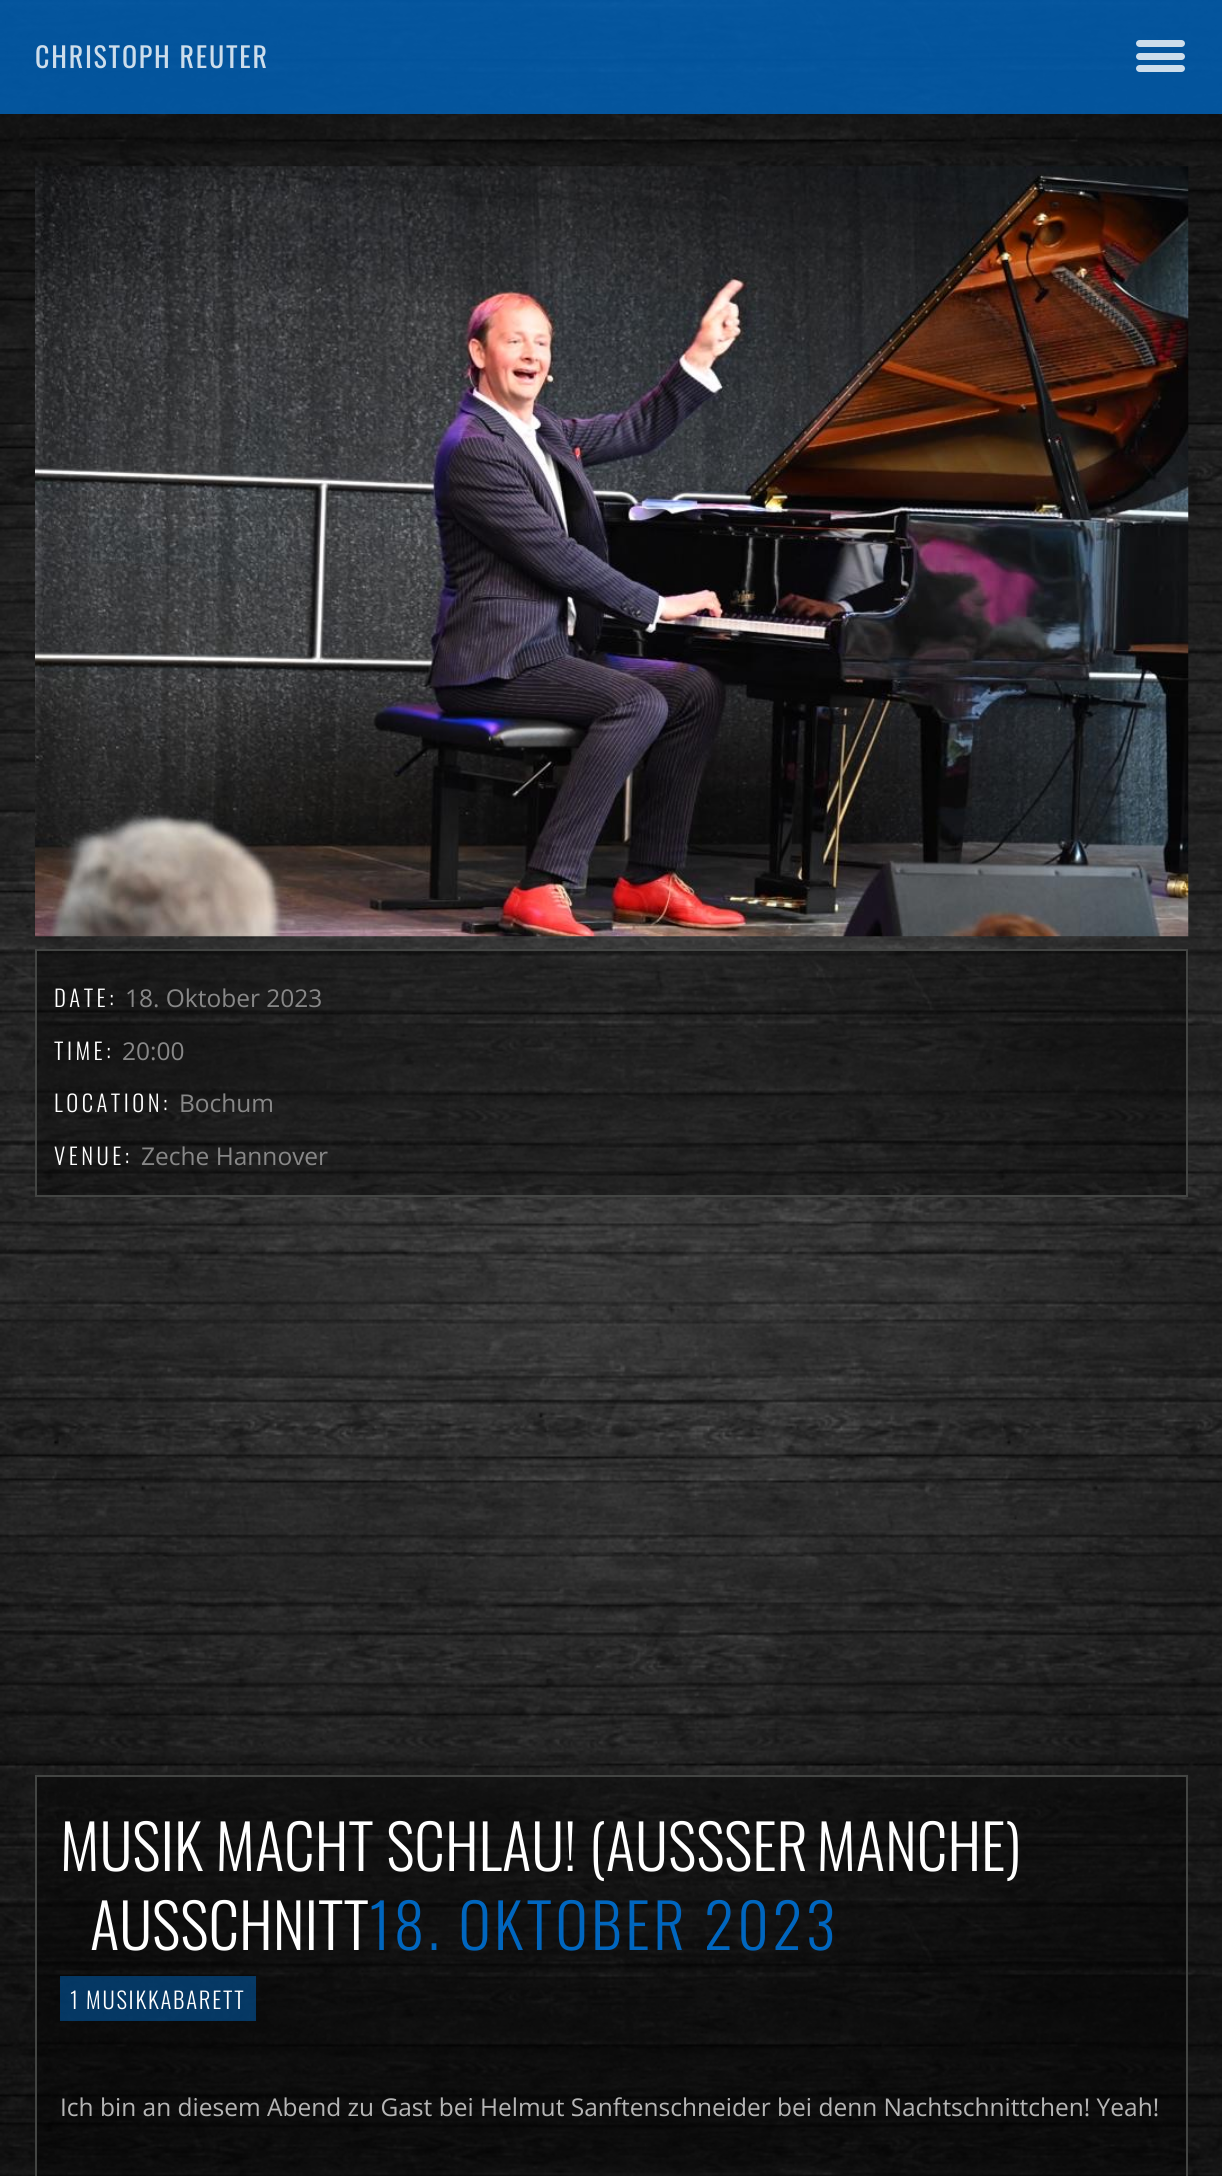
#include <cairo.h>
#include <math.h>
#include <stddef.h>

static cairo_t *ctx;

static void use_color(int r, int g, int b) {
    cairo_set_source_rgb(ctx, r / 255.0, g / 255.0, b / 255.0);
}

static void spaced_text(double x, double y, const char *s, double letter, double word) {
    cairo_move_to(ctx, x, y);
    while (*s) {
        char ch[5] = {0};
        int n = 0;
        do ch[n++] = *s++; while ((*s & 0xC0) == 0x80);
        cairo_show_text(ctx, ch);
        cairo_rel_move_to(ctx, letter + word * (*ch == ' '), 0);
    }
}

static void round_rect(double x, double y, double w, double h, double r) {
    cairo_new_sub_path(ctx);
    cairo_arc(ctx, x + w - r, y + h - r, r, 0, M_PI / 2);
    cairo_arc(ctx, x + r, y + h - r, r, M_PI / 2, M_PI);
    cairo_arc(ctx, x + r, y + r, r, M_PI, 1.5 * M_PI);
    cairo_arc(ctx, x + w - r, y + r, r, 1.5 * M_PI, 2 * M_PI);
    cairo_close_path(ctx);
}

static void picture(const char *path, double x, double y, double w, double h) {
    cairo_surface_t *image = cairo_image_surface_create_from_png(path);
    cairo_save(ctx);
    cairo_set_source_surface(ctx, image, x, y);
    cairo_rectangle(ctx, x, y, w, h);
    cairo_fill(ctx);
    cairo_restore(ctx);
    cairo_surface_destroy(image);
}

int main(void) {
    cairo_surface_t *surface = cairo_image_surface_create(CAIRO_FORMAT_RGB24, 1222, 2176);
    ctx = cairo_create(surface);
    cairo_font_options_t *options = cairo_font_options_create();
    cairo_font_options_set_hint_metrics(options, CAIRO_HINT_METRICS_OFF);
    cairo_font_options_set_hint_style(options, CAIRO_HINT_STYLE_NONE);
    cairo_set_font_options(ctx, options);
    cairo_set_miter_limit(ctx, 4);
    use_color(255, 255, 255);
    cairo_paint(ctx);
    picture("img1.png", 0, 0, 1222, 2176);
    cairo_set_source_rgba(ctx, 0, 0.4, 0.749, 0.8);
    cairo_rectangle(ctx, 0, 0, 1222, 114);
    cairo_fill(ctx);
    cairo_select_font_face(ctx, "Oswald", CAIRO_FONT_SLANT_NORMAL, CAIRO_FONT_WEIGHT_NORMAL);
    cairo_set_font_size(ctx, 28);
    use_color(205, 221, 235);
    spaced_text(35, 68, "CHRISTOPH REUTER", 1.75, 0);
    round_rect(1136, 40, 49, 7, 3.5);
    cairo_fill(ctx);
    cairo_set_source_rgba(ctx, 1, 1, 1, 0.8);
    round_rect(1136, 53, 49, 7, 3.5);
    cairo_fill(ctx);
    round_rect(1136, 65, 49, 7, 3.5);
    cairo_fill(ctx);
    picture("img2.png", 35, 166, 1154, 771);
    cairo_set_source_rgba(ctx, 0, 0, 0, 0.4);
    cairo_rectangle(ctx, 36, 950, 1151, 246);
    cairo_fill_preserve(ctx);
    use_color(67, 69, 67);
    cairo_stroke(ctx);
    cairo_select_font_face(ctx, "Oswald Light", CAIRO_FONT_SLANT_NORMAL, CAIRO_FONT_WEIGHT_NORMAL);
    cairo_set_font_size(ctx, 22.75);
    use_color(255, 255, 255);
    spaced_text(54, 1007, "DATE:", 3.5, 0);
    cairo_select_font_face(ctx, "Open Sans", CAIRO_FONT_SLANT_NORMAL, CAIRO_FONT_WEIGHT_NORMAL);
    cairo_set_font_size(ctx, 24.5);
    use_color(136, 136, 136);
    cairo_move_to(ctx, 125, 1007);
    cairo_show_text(ctx, "18. Oktober 2023");
    cairo_select_font_face(ctx, "Oswald Light", CAIRO_FONT_SLANT_NORMAL, CAIRO_FONT_WEIGHT_NORMAL);
    cairo_set_font_size(ctx, 22.75);
    use_color(255, 255, 255);
    spaced_text(54, 1060, "TIME:", 3.5, 0);
    cairo_select_font_face(ctx, "Open Sans", CAIRO_FONT_SLANT_NORMAL, CAIRO_FONT_WEIGHT_NORMAL);
    cairo_set_font_size(ctx, 24.5);
    use_color(136, 136, 136);
    cairo_move_to(ctx, 122, 1060);
    cairo_show_text(ctx, "20:00");
    cairo_select_font_face(ctx, "Oswald Light", CAIRO_FONT_SLANT_NORMAL, CAIRO_FONT_WEIGHT_NORMAL);
    cairo_set_font_size(ctx, 22.75);
    use_color(255, 255, 255);
    spaced_text(54, 1112, "LOCATION:", 3.5, 0);
    cairo_select_font_face(ctx, "Open Sans", CAIRO_FONT_SLANT_NORMAL, CAIRO_FONT_WEIGHT_NORMAL);
    cairo_set_font_size(ctx, 24.5);
    use_color(136, 136, 136);
    cairo_move_to(ctx, 179, 1112);
    cairo_show_text(ctx, "Bochum");
    cairo_select_font_face(ctx, "Oswald Light", CAIRO_FONT_SLANT_NORMAL, CAIRO_FONT_WEIGHT_NORMAL);
    cairo_set_font_size(ctx, 22.75);
    use_color(255, 255, 255);
    spaced_text(54, 1165, "VENUE:", 3.5, 0);
    cairo_select_font_face(ctx, "Open Sans", CAIRO_FONT_SLANT_NORMAL, CAIRO_FONT_WEIGHT_NORMAL);
    cairo_set_font_size(ctx, 24.5);
    use_color(136, 136, 136);
    cairo_move_to(ctx, 141, 1165);
    cairo_show_text(ctx, "Zeche Hannover");
    cairo_set_source_rgba(ctx, 0, 0, 0, 0.4);
    cairo_rectangle(ctx, 36, 1776, 1151, 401);
    cairo_fill_preserve(ctx);
    use_color(67, 69, 67);
    cairo_stroke(ctx);
    cairo_select_font_face(ctx, "Oswald Light", CAIRO_FONT_SLANT_NORMAL, CAIRO_FONT_WEIGHT_NORMAL);
    cairo_set_font_size(ctx, 61.25);
    use_color(255, 255, 255);
    cairo_move_to(ctx, 60, 1871);
    cairo_show_text(ctx, "MUSIK MACHT SCHLAU! (AUSS");
    spaced_text(724, 1871, "SER MANCHE)", 0, -4);
    cairo_move_to(ctx, 90, 1950);
    cairo_show_text(ctx, "AUSSCHNITT");
    use_color(0, 102, 191);
    spaced_text(369, 1950, "18. OKTOBER 2023", 3.5, 0);
    cairo_set_source_rgba(ctx, 0, 0.4, 0.749, 0.5);
    cairo_rectangle(ctx, 60, 1976, 196, 45);
    cairo_fill(ctx);
    cairo_set_font_size(ctx, 22.75);
    use_color(255, 255, 255);
    spaced_text(70, 2009, "1 MUSIKKABARETT", 1.75, 0);
    cairo_select_font_face(ctx, "Open Sans", CAIRO_FONT_SLANT_NORMAL, CAIRO_FONT_WEIGHT_NORMAL);
    cairo_set_font_size(ctx, 24.5);
    use_color(182, 182, 182);
    cairo_move_to(ctx, 60, 2116);
    cairo_show_text(ctx, "Ich bin an diesem Abend zu Gast bei Helmut Sanftenschneider bei denn Nachtschnittchen! Yeah!");
    cairo_surface_write_to_png(surface, "result.png");
    cairo_font_options_destroy(options);
    cairo_destroy(ctx);
    cairo_surface_destroy(surface);
    return 0;
}
